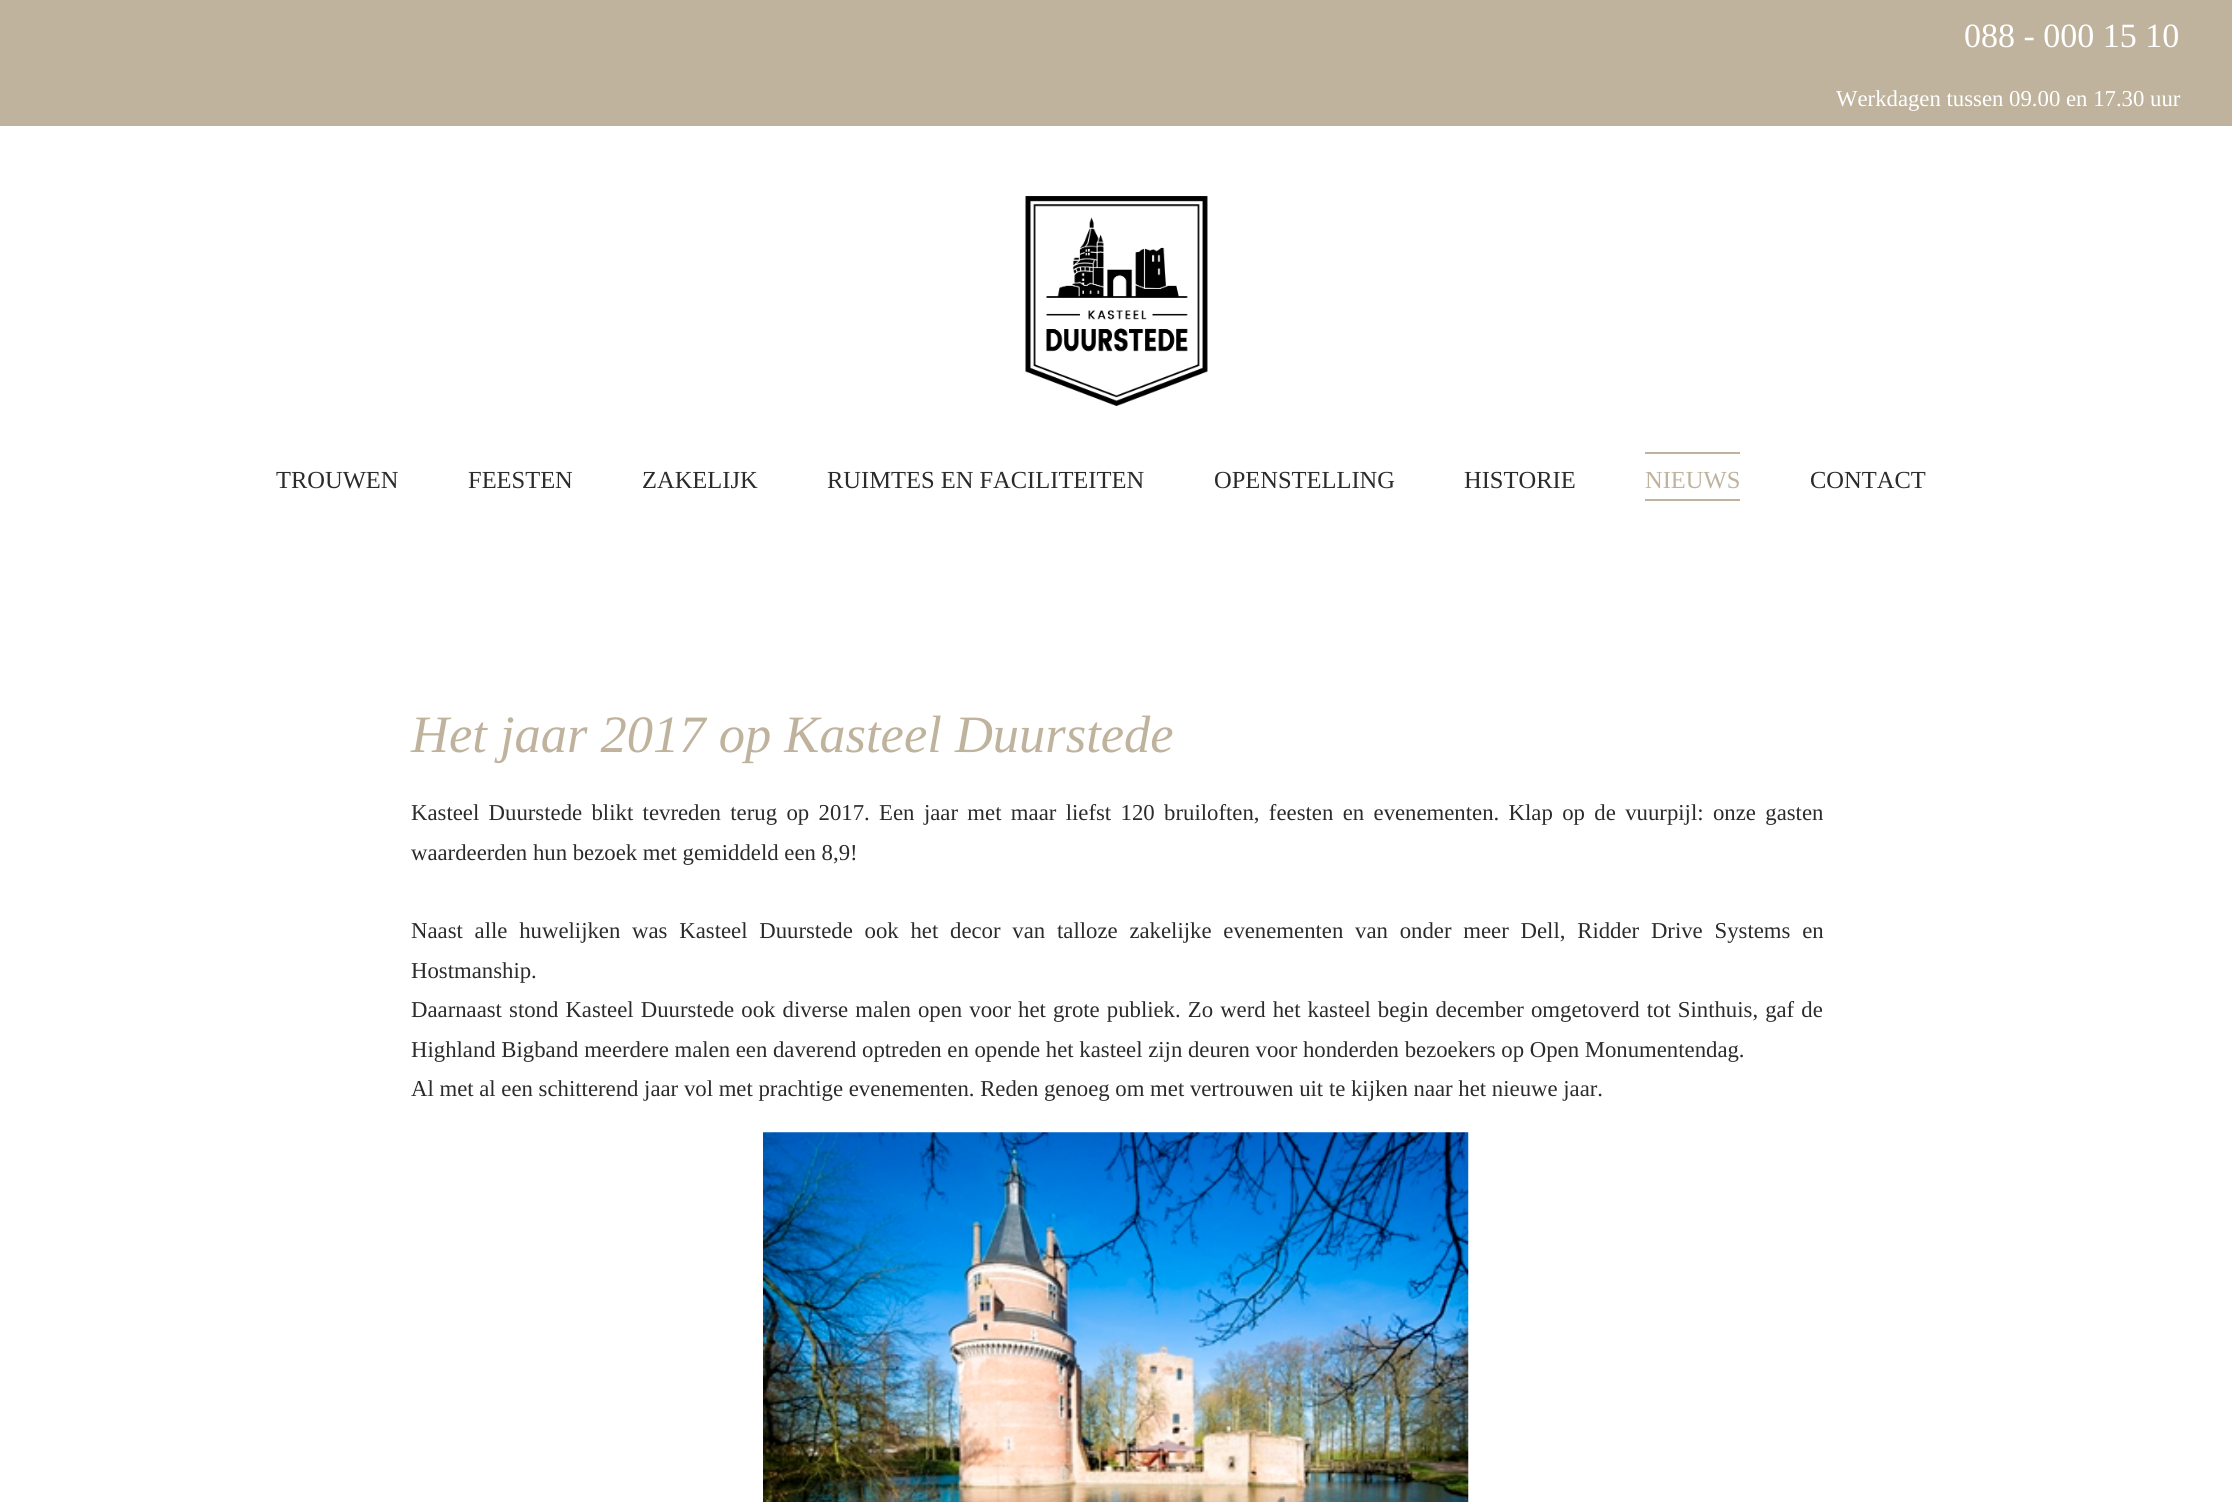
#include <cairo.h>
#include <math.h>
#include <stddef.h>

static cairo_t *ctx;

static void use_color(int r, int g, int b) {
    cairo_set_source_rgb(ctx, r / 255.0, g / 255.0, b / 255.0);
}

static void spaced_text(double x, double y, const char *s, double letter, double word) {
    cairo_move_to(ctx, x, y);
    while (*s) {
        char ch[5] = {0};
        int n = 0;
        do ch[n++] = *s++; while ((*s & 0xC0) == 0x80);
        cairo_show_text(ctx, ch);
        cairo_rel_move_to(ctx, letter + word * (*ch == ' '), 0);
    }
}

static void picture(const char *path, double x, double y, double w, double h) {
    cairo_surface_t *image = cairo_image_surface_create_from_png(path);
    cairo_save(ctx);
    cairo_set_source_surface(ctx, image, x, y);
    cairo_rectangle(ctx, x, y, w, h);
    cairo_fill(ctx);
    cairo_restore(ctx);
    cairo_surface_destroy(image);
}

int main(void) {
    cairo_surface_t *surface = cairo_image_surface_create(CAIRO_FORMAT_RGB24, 2232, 1502);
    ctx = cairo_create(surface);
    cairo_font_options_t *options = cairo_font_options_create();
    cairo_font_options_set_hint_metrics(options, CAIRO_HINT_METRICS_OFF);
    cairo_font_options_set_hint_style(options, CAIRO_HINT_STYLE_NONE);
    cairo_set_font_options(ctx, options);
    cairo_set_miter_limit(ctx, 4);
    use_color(255, 255, 255);
    cairo_paint(ctx);
    use_color(191, 179, 158);
    cairo_rectangle(ctx, 0, 0, 2232, 126);
    cairo_fill(ctx);
    cairo_select_font_face(ctx, "Liberation Serif", CAIRO_FONT_SLANT_NORMAL, CAIRO_FONT_WEIGHT_NORMAL);
    cairo_set_font_size(ctx, 34);
    use_color(255, 255, 255);
    cairo_move_to(ctx, 1964, 47);
    cairo_show_text(ctx, "088 - 000 15 10");
    cairo_set_font_size(ctx, 22.75);
    cairo_move_to(ctx, 1836, 106);
    cairo_show_text(ctx, "Werkdagen tussen 09.00 en 17.30 uur");
    picture("img1.png", 1025, 196, 183, 210);
    cairo_set_font_size(ctx, 24.5);
    use_color(43, 44, 42);
    cairo_move_to(ctx, 276, 488);
    cairo_show_text(ctx, "TROUWEN");
    cairo_move_to(ctx, 468, 488);
    cairo_show_text(ctx, "FEESTEN");
    cairo_move_to(ctx, 642, 488);
    cairo_show_text(ctx, "ZAKELIJK");
    cairo_move_to(ctx, 827, 488);
    cairo_show_text(ctx, "RUIMTES EN FACILITEITEN");
    cairo_move_to(ctx, 1214, 488);
    cairo_show_text(ctx, "OPENSTELLING");
    cairo_move_to(ctx, 1464, 488);
    cairo_show_text(ctx, "HISTORIE");
    use_color(191, 179, 158);
    cairo_move_to(ctx, 1645, 488);
    cairo_show_text(ctx, "NIEUWS");
    cairo_rectangle(ctx, 1645, 452, 95, 2);
    cairo_fill(ctx);
    cairo_rectangle(ctx, 1645, 499, 95, 2);
    cairo_fill(ctx);
    use_color(43, 44, 42);
    cairo_move_to(ctx, 1810, 488);
    cairo_show_text(ctx, "CONTACT");
    cairo_select_font_face(ctx, "Liberation Serif", CAIRO_FONT_SLANT_ITALIC, CAIRO_FONT_WEIGHT_NORMAL);
    cairo_set_font_size(ctx, 52.5);
    use_color(191, 179, 158);
    cairo_move_to(ctx, 411, 752);
    cairo_show_text(ctx, "Het jaar 2017 op Kasteel Duurstede");
    cairo_select_font_face(ctx, "Liberation Serif", CAIRO_FONT_SLANT_NORMAL, CAIRO_FONT_WEIGHT_NORMAL);
    cairo_set_font_size(ctx, 22.75);
    use_color(43, 44, 42);
    spaced_text(411, 820, "Kasteel Duurstede blikt tevreden terug op 2017. Een jaar met maar liefst 120 bruiloften, feesten en evenementen. Klap op de vuurpijl: onze gasten", 0, 3.7);
    cairo_move_to(ctx, 411, 860);
    cairo_show_text(ctx, "waardeerden hun bezoek met gemiddeld een 8,9!");
    spaced_text(411, 938, "Naast alle huwelijken was Kasteel Duurstede ook het decor van talloze zakelijke evenementen van onder meer Dell, Ridder Drive Systems en", 0, 6.1);
    cairo_move_to(ctx, 411, 978);
    cairo_show_text(ctx, "Hostmanship.");
    spaced_text(411, 1017, "Daarnaast stond Kasteel Duurstede ook diverse malen open voor het grote publiek. Zo werd het kasteel begin december omgetoverd tot Sinthuis, gaf de", 0, 1.4);
    cairo_move_to(ctx, 411, 1057);
    cairo_show_text(ctx, "Highland Bigband meerdere malen een daverend optreden en opende het kasteel zijn deuren voor honderden bezoekers op Open Monumentendag.");
    cairo_move_to(ctx, 411, 1096);
    cairo_show_text(ctx, "Al met al een schitterend jaar vol met prachtige evenementen. Reden genoeg om met vertrouwen uit te kijken naar het nieuwe jaar.");
    picture("img2.png", 763, 1132, 706, 370);
    cairo_surface_write_to_png(surface, "result.png");
    cairo_font_options_destroy(options);
    cairo_destroy(ctx);
    cairo_surface_destroy(surface);
    return 0;
}
